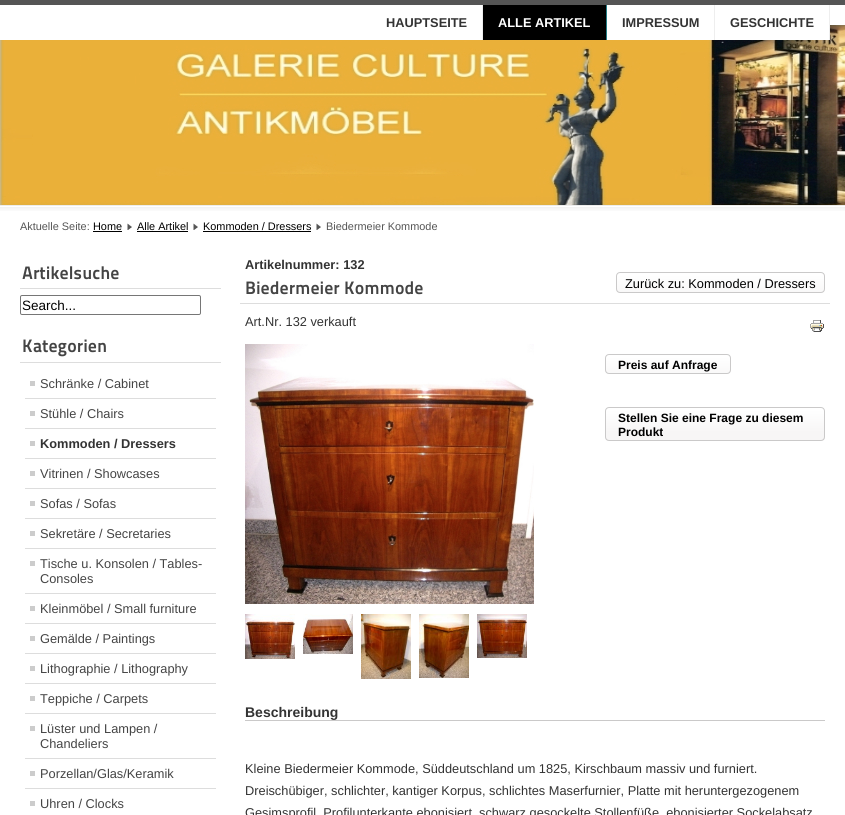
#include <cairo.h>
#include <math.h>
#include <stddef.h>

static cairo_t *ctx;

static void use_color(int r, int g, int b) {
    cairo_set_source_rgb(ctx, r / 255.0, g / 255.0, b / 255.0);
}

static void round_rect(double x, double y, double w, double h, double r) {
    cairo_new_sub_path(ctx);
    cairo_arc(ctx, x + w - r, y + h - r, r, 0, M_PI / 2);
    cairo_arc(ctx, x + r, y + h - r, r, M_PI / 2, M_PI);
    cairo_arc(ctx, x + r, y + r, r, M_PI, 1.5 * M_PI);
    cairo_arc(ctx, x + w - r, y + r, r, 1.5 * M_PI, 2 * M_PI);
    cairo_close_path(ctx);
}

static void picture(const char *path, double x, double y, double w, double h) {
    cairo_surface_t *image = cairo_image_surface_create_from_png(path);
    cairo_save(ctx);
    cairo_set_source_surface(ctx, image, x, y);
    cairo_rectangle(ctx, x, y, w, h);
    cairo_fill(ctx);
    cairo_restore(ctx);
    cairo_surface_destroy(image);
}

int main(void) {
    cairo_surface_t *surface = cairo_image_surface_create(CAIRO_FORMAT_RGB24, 845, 815);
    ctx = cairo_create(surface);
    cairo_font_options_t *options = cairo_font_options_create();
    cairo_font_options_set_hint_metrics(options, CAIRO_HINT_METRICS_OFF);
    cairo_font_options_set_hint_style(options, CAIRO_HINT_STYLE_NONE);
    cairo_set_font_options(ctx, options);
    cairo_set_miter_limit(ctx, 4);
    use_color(255, 255, 255);
    cairo_paint(ctx);
    use_color(85, 85, 85);
    cairo_rectangle(ctx, 0, 0, 845, 5);
    cairo_fill(ctx);
    picture("img1.png", 0, 25, 845, 180);
    use_color(255, 255, 255);
    cairo_rectangle(ctx, 0, 25, 829, 15);
    cairo_fill(ctx);
    cairo_select_font_face(ctx, "Liberation Sans", CAIRO_FONT_SLANT_NORMAL, CAIRO_FONT_WEIGHT_BOLD);
    cairo_set_font_size(ctx, 12.8);
    use_color(51, 51, 51);
    cairo_move_to(ctx, 386, 27);
    cairo_show_text(ctx, "HAUPTSEITE");
    use_color(238, 238, 238);
    cairo_rectangle(ctx, 482, 5, 1, 35);
    cairo_fill(ctx);
    use_color(0, 0, 0);
    cairo_rectangle(ctx, 483, 5, 123, 35);
    cairo_fill(ctx);
    use_color(255, 255, 255);
    cairo_move_to(ctx, 498, 27);
    cairo_show_text(ctx, "ALLE ARTIKEL");
    use_color(35, 125, 133);
    cairo_rectangle(ctx, 606, 5, 1, 35);
    cairo_fill(ctx);
    use_color(51, 51, 51);
    cairo_move_to(ctx, 622, 27);
    cairo_show_text(ctx, "IMPRESSUM");
    use_color(238, 238, 238);
    cairo_rectangle(ctx, 714, 5, 1, 35);
    cairo_fill(ctx);
    use_color(51, 51, 51);
    cairo_move_to(ctx, 730, 27);
    cairo_show_text(ctx, "GESCHICHTE");
    use_color(238, 238, 238);
    cairo_rectangle(ctx, 829, 5, 1, 35);
    cairo_fill(ctx);
    picture("img2.png", 0, 205, 845, 6);
    cairo_select_font_face(ctx, "Liberation Sans", CAIRO_FONT_SLANT_NORMAL, CAIRO_FONT_WEIGHT_NORMAL);
    cairo_set_font_size(ctx, 10.9);
    use_color(85, 85, 85);
    cairo_move_to(ctx, 20, 230);
    cairo_show_text(ctx, "Aktuelle Seite:");
    use_color(0, 0, 0);
    cairo_move_to(ctx, 93, 230);
    cairo_show_text(ctx, "Home");
    cairo_rectangle(ctx, 93, 231, 29, 1);
    cairo_fill(ctx);
    picture("img3.png", 127, 223, 5, 7);
    cairo_move_to(ctx, 137, 230);
    cairo_show_text(ctx, "Alle Artikel");
    cairo_rectangle(ctx, 137, 231, 51, 1);
    cairo_fill(ctx);
    picture("img3.png", 193, 223, 5, 7);
    cairo_move_to(ctx, 203, 230);
    cairo_show_text(ctx, "Kommoden / Dressers");
    cairo_rectangle(ctx, 203, 231, 108, 1);
    cairo_fill(ctx);
    picture("img3.png", 316, 223, 5, 7);
    use_color(85, 85, 85);
    cairo_move_to(ctx, 326, 230);
    cairo_show_text(ctx, "Biedermeier Kommode");
    use_color(221, 221, 221);
    cairo_rectangle(ctx, 20, 288, 201, 1);
    cairo_fill(ctx);
    cairo_select_font_face(ctx, "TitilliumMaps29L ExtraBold", CAIRO_FONT_SLANT_NORMAL, CAIRO_FONT_WEIGHT_NORMAL);
    cairo_set_font_size(ctx, 18);
    use_color(68, 68, 68);
    cairo_move_to(ctx, 22, 279);
    cairo_show_text(ctx, "Artikelsuche");
    round_rect(20.5, 295.5, 180, 19, 1.5);
    use_color(118, 118, 118);
    cairo_set_line_width(ctx, 1);
    cairo_stroke(ctx);
    cairo_select_font_face(ctx, "Liberation Sans", CAIRO_FONT_SLANT_NORMAL, CAIRO_FONT_WEIGHT_NORMAL);
    cairo_set_font_size(ctx, 13.5);
    use_color(0, 0, 0);
    cairo_move_to(ctx, 22, 310);
    cairo_show_text(ctx, "Search...");
    use_color(221, 221, 221);
    cairo_rectangle(ctx, 20, 362, 201, 1);
    cairo_fill(ctx);
    cairo_select_font_face(ctx, "TitilliumMaps29L ExtraBold", CAIRO_FONT_SLANT_NORMAL, CAIRO_FONT_WEIGHT_NORMAL);
    cairo_set_font_size(ctx, 18);
    use_color(68, 68, 68);
    cairo_move_to(ctx, 22, 352);
    cairo_show_text(ctx, "Kategorien");
    use_color(221, 221, 221);
    cairo_rectangle(ctx, 25, 398, 191, 1);
    cairo_fill(ctx);
    use_color(204, 204, 204);
    cairo_rectangle(ctx, 30, 381, 5, 5);
    cairo_fill(ctx);
    cairo_select_font_face(ctx, "Liberation Sans", CAIRO_FONT_SLANT_NORMAL, CAIRO_FONT_WEIGHT_NORMAL);
    cairo_set_font_size(ctx, 12.8);
    use_color(68, 68, 68);
    cairo_move_to(ctx, 40, 388);
    cairo_show_text(ctx, "Schränke / Cabinet");
    use_color(221, 221, 221);
    cairo_rectangle(ctx, 25, 428, 191, 1);
    cairo_fill(ctx);
    use_color(204, 204, 204);
    cairo_rectangle(ctx, 30, 411, 5, 5);
    cairo_fill(ctx);
    use_color(68, 68, 68);
    cairo_move_to(ctx, 40, 418);
    cairo_show_text(ctx, "Stühle / Chairs");
    use_color(221, 221, 221);
    cairo_rectangle(ctx, 25, 458, 191, 1);
    cairo_fill(ctx);
    use_color(204, 204, 204);
    cairo_rectangle(ctx, 30, 441, 5, 5);
    cairo_fill(ctx);
    cairo_select_font_face(ctx, "Liberation Sans", CAIRO_FONT_SLANT_NORMAL, CAIRO_FONT_WEIGHT_BOLD);
    use_color(51, 51, 51);
    cairo_move_to(ctx, 40, 448);
    cairo_show_text(ctx, "Kommoden / Dressers");
    use_color(221, 221, 221);
    cairo_rectangle(ctx, 25, 488, 191, 1);
    cairo_fill(ctx);
    use_color(204, 204, 204);
    cairo_rectangle(ctx, 30, 471, 5, 5);
    cairo_fill(ctx);
    cairo_select_font_face(ctx, "Liberation Sans", CAIRO_FONT_SLANT_NORMAL, CAIRO_FONT_WEIGHT_NORMAL);
    use_color(68, 68, 68);
    cairo_move_to(ctx, 40, 478);
    cairo_show_text(ctx, "Vitrinen / Showcases");
    use_color(221, 221, 221);
    cairo_rectangle(ctx, 25, 518, 191, 1);
    cairo_fill(ctx);
    use_color(204, 204, 204);
    cairo_rectangle(ctx, 30, 501, 5, 5);
    cairo_fill(ctx);
    use_color(68, 68, 68);
    cairo_move_to(ctx, 40, 508);
    cairo_show_text(ctx, "Sofas / Sofas");
    use_color(221, 221, 221);
    cairo_rectangle(ctx, 25, 548, 191, 1);
    cairo_fill(ctx);
    use_color(204, 204, 204);
    cairo_rectangle(ctx, 30, 531, 5, 5);
    cairo_fill(ctx);
    use_color(68, 68, 68);
    cairo_move_to(ctx, 40, 538);
    cairo_show_text(ctx, "Sekretäre / Secretaries");
    use_color(221, 221, 221);
    cairo_rectangle(ctx, 25, 593, 191, 1);
    cairo_fill(ctx);
    use_color(204, 204, 204);
    cairo_rectangle(ctx, 30, 561, 5, 5);
    cairo_fill(ctx);
    use_color(68, 68, 68);
    cairo_move_to(ctx, 40, 568);
    cairo_show_text(ctx, "Tische u. Konsolen / Tables-");
    cairo_move_to(ctx, 40, 583);
    cairo_show_text(ctx, "Consoles");
    use_color(221, 221, 221);
    cairo_rectangle(ctx, 25, 623, 191, 1);
    cairo_fill(ctx);
    use_color(204, 204, 204);
    cairo_rectangle(ctx, 30, 606, 5, 5);
    cairo_fill(ctx);
    use_color(68, 68, 68);
    cairo_move_to(ctx, 40, 613);
    cairo_show_text(ctx, "Kleinmöbel / Small furniture");
    use_color(221, 221, 221);
    cairo_rectangle(ctx, 25, 653, 191, 1);
    cairo_fill(ctx);
    use_color(204, 204, 204);
    cairo_rectangle(ctx, 30, 636, 5, 5);
    cairo_fill(ctx);
    use_color(68, 68, 68);
    cairo_move_to(ctx, 40, 643);
    cairo_show_text(ctx, "Gemälde / Paintings");
    use_color(221, 221, 221);
    cairo_rectangle(ctx, 25, 683, 191, 1);
    cairo_fill(ctx);
    use_color(204, 204, 204);
    cairo_rectangle(ctx, 30, 666, 5, 5);
    cairo_fill(ctx);
    use_color(68, 68, 68);
    cairo_move_to(ctx, 40, 673);
    cairo_show_text(ctx, "Lithographie / Lithography");
    use_color(221, 221, 221);
    cairo_rectangle(ctx, 25, 713, 191, 1);
    cairo_fill(ctx);
    use_color(204, 204, 204);
    cairo_rectangle(ctx, 30, 696, 5, 5);
    cairo_fill(ctx);
    use_color(68, 68, 68);
    cairo_move_to(ctx, 40, 703);
    cairo_show_text(ctx, "Teppiche / Carpets");
    use_color(221, 221, 221);
    cairo_rectangle(ctx, 25, 758, 191, 1);
    cairo_fill(ctx);
    use_color(204, 204, 204);
    cairo_rectangle(ctx, 30, 726, 5, 5);
    cairo_fill(ctx);
    use_color(68, 68, 68);
    cairo_move_to(ctx, 40, 733);
    cairo_show_text(ctx, "Lüster und Lampen /");
    cairo_move_to(ctx, 40, 748);
    cairo_show_text(ctx, "Chandeliers");
    use_color(221, 221, 221);
    cairo_rectangle(ctx, 25, 788, 191, 1);
    cairo_fill(ctx);
    use_color(204, 204, 204);
    cairo_rectangle(ctx, 30, 771, 5, 5);
    cairo_fill(ctx);
    use_color(68, 68, 68);
    cairo_move_to(ctx, 40, 778);
    cairo_show_text(ctx, "Porzellan/Glas/Keramik");
    use_color(204, 204, 204);
    cairo_rectangle(ctx, 30, 801, 5, 5);
    cairo_fill(ctx);
    use_color(68, 68, 68);
    cairo_move_to(ctx, 40, 808);
    cairo_show_text(ctx, "Uhren / Clocks");
    cairo_select_font_face(ctx, "Liberation Sans", CAIRO_FONT_SLANT_NORMAL, CAIRO_FONT_WEIGHT_BOLD);
    use_color(51, 51, 51);
    cairo_move_to(ctx, 245, 269);
    cairo_show_text(ctx, "Artikelnummer: 132");
    use_color(221, 221, 221);
    cairo_rectangle(ctx, 240, 303, 590, 1);
    cairo_fill(ctx);
    cairo_select_font_face(ctx, "TitilliumMaps29L ExtraBold", CAIRO_FONT_SLANT_NORMAL, CAIRO_FONT_WEIGHT_NORMAL);
    cairo_set_font_size(ctx, 18);
    use_color(68, 68, 68);
    cairo_move_to(ctx, 245, 294);
    cairo_show_text(ctx, "Biedermeier Kommode");
    picture("img4.png", 616, 273, 209, 20);
    round_rect(616.5, 272.5, 208, 20, 3.5);
    use_color(202, 201, 201);
    cairo_stroke(ctx);
    cairo_select_font_face(ctx, "Liberation Sans", CAIRO_FONT_SLANT_NORMAL, CAIRO_FONT_WEIGHT_NORMAL);
    cairo_set_font_size(ctx, 12.8);
    use_color(0, 0, 0);
    cairo_move_to(ctx, 625, 288);
    cairo_show_text(ctx, "Zurück zu: Kommoden / Dressers");
    use_color(51, 51, 51);
    cairo_move_to(ctx, 245, 326);
    cairo_show_text(ctx, "Art.Nr. 132 verkauft");
    picture("img5.png", 810, 320, 14, 12);
    picture("img6.png", 245, 344, 289, 260);
    picture("img7.png", 245, 614, 50, 45);
    picture("img8.png", 303, 614, 50, 40);
    picture("img9.png", 361, 614, 50, 65);
    picture("img10.png", 419, 614, 50, 64);
    picture("img11.png", 477, 614, 50, 44);
    picture("img12.png", 605, 355, 126, 19);
    round_rect(605.5, 354.5, 125, 19, 3.5);
    use_color(202, 201, 201);
    cairo_stroke(ctx);
    cairo_select_font_face(ctx, "Liberation Sans", CAIRO_FONT_SLANT_NORMAL, CAIRO_FONT_WEIGHT_BOLD);
    cairo_set_font_size(ctx, 12);
    use_color(0, 0, 0);
    cairo_move_to(ctx, 618, 369);
    cairo_show_text(ctx, "Preis auf Anfrage");
    picture("img13.png", 605, 408, 220, 33);
    round_rect(605.5, 407.5, 219, 33, 3.5);
    use_color(202, 201, 201);
    cairo_stroke(ctx);
    use_color(0, 0, 0);
    cairo_move_to(ctx, 618, 422);
    cairo_show_text(ctx, "Stellen Sie eine Frage zu diesem");
    cairo_move_to(ctx, 618, 436);
    cairo_show_text(ctx, "Produkt");
    use_color(202, 201, 201);
    cairo_rectangle(ctx, 245, 720, 580, 1);
    cairo_fill(ctx);
    cairo_set_font_size(ctx, 14);
    use_color(51, 51, 51);
    cairo_move_to(ctx, 245, 717);
    cairo_show_text(ctx, "Beschreibung");
    cairo_select_font_face(ctx, "Liberation Sans", CAIRO_FONT_SLANT_NORMAL, CAIRO_FONT_WEIGHT_NORMAL);
    cairo_set_font_size(ctx, 12.8);
    cairo_move_to(ctx, 245, 773);
    cairo_show_text(ctx, "Kleine Biedermeier Kommode, Süddeutschland um 1825, Kirschbaum massiv und furniert.");
    cairo_move_to(ctx, 245, 795);
    cairo_show_text(ctx, "Dreischübiger, schlichter, kantiger Korpus, schlichtes Maserfurnier, Platte mit heruntergezogenem");
    cairo_move_to(ctx, 245, 817);
    cairo_show_text(ctx, "Gesimsprofil, Profilunterkante ebonisiert, schwarz gesockelte Stollenfüße, ebonisierter Sockelabsatz");
    cairo_surface_write_to_png(surface, "result.png");
    cairo_font_options_destroy(options);
    cairo_destroy(ctx);
    cairo_surface_destroy(surface);
    return 0;
}
